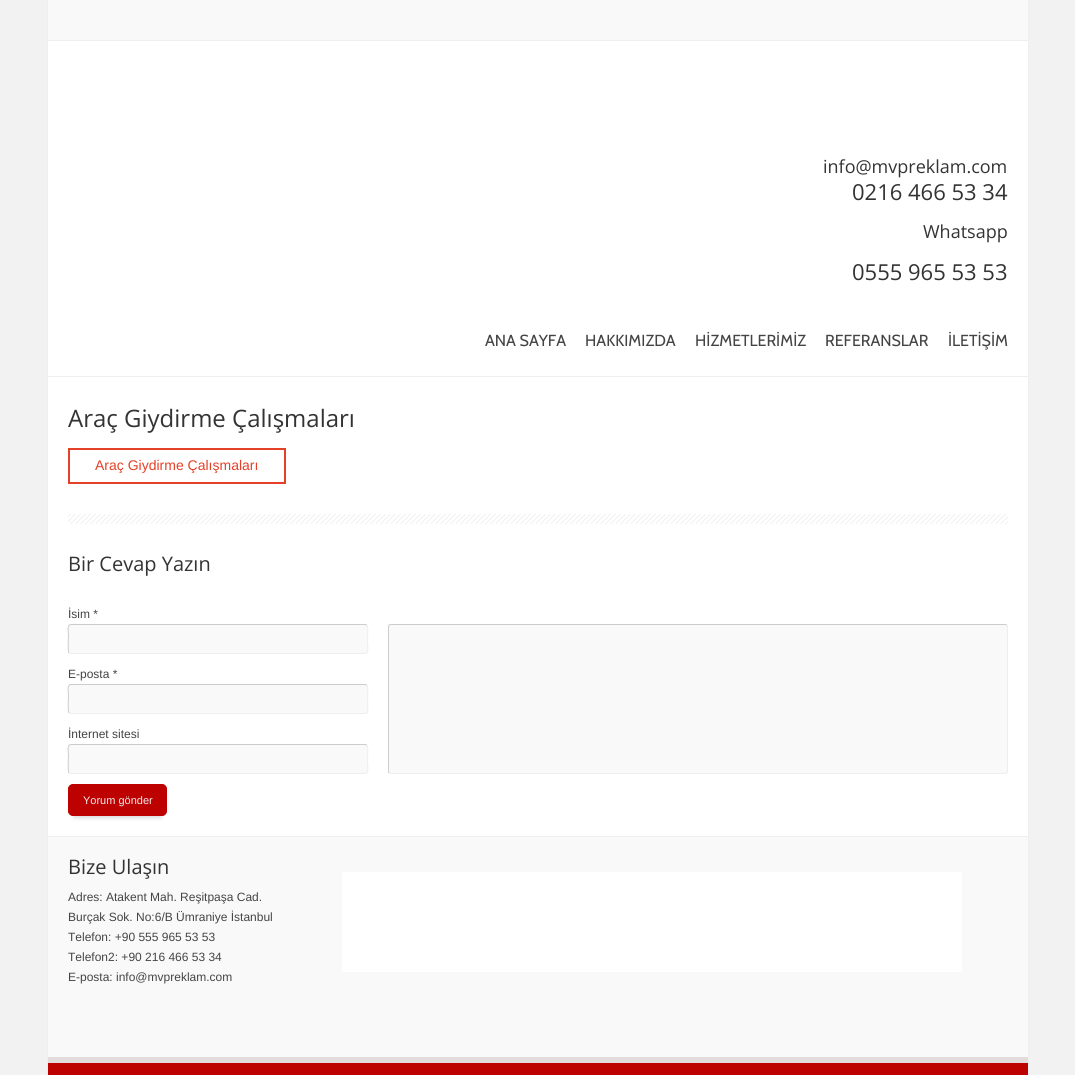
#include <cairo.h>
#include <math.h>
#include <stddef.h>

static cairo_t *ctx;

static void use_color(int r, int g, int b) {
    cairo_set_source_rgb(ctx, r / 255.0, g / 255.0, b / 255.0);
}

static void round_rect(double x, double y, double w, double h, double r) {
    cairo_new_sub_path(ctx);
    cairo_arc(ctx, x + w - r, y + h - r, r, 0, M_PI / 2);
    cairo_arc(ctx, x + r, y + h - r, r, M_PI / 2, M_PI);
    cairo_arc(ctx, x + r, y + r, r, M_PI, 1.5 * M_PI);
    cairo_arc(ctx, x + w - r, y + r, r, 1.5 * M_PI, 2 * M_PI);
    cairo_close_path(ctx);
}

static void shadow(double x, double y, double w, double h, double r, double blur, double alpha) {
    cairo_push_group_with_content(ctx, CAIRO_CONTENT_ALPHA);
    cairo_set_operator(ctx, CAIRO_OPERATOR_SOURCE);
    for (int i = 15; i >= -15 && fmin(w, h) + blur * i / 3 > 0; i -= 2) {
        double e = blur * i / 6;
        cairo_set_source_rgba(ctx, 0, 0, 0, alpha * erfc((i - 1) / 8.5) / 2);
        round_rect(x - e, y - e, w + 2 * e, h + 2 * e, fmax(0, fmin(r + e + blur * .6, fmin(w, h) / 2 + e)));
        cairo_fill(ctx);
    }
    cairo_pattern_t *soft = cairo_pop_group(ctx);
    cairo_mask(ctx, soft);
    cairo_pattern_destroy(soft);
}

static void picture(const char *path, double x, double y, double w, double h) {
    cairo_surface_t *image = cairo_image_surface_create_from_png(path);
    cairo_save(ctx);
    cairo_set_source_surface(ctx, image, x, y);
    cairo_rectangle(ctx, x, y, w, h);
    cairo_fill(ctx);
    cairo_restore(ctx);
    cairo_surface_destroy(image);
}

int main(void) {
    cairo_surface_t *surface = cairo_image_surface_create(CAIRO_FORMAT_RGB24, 1075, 1075);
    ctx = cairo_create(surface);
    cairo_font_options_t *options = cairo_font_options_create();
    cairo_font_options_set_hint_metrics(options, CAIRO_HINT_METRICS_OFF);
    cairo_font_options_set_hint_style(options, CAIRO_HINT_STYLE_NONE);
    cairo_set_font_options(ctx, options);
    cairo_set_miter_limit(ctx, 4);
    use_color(242, 242, 242);
    cairo_paint(ctx);
    use_color(238, 238, 238);
    cairo_rectangle(ctx, 1028, 0, 1, 1075);
    cairo_fill(ctx);
    cairo_rectangle(ctx, 47, 0, 1, 1075);
    cairo_fill(ctx);
    use_color(249, 249, 249);
    cairo_rectangle(ctx, 48, 0, 980, 40);
    cairo_fill(ctx);
    use_color(238, 238, 238);
    cairo_rectangle(ctx, 48, 40, 980, 1);
    cairo_fill(ctx);
    cairo_rectangle(ctx, 48, 376, 980, 1);
    cairo_fill(ctx);
    use_color(255, 255, 255);
    cairo_rectangle(ctx, 48, 41, 980, 335);
    cairo_fill(ctx);
    cairo_select_font_face(ctx, "Open Sans", CAIRO_FONT_SLANT_NORMAL, CAIRO_FONT_WEIGHT_NORMAL);
    cairo_set_font_size(ctx, 18);
    use_color(51, 51, 51);
    cairo_move_to(ctx, 823, 173);
    cairo_show_text(ctx, "info@mvpreklam.com");
    cairo_set_font_size(ctx, 22);
    cairo_move_to(ctx, 852, 200);
    cairo_show_text(ctx, "0216 466 53 34");
    cairo_set_font_size(ctx, 18);
    cairo_move_to(ctx, 923, 238);
    cairo_show_text(ctx, "Whatsapp");
    cairo_set_font_size(ctx, 22);
    cairo_move_to(ctx, 852, 280);
    cairo_show_text(ctx, "0555 965 53 53");
    cairo_select_font_face(ctx, "Cabin", CAIRO_FONT_SLANT_NORMAL, CAIRO_FONT_WEIGHT_NORMAL);
    cairo_set_font_size(ctx, 16);
    use_color(68, 68, 68);
    cairo_move_to(ctx, 485, 346);
    cairo_show_text(ctx, "ANA SAYFA");
    cairo_move_to(ctx, 585, 346);
    cairo_show_text(ctx, "HAKKIMIZDA");
    cairo_move_to(ctx, 695, 346);
    cairo_show_text(ctx, "HİZMETLERİMİZ");
    cairo_move_to(ctx, 825, 346);
    cairo_show_text(ctx, "REFERANSLAR");
    cairo_move_to(ctx, 948, 346);
    cairo_show_text(ctx, "İLETİŞİM");
    use_color(255, 255, 255);
    cairo_rectangle(ctx, 48, 377, 980, 459);
    cairo_fill(ctx);
    cairo_select_font_face(ctx, "Open Sans", CAIRO_FONT_SLANT_NORMAL, CAIRO_FONT_WEIGHT_NORMAL);
    cairo_set_font_size(ctx, 24);
    use_color(51, 51, 51);
    cairo_move_to(ctx, 68, 427);
    cairo_show_text(ctx, "Araç Giydirme Çalışmaları");
    cairo_rectangle(ctx, 69, 449, 216, 34);
    use_color(229, 64, 40);
    cairo_stroke(ctx);
    cairo_select_font_face(ctx, "Liberation Sans", CAIRO_FONT_SLANT_NORMAL, CAIRO_FONT_WEIGHT_NORMAL);
    cairo_set_font_size(ctx, 14);
    cairo_move_to(ctx, 95, 470);
    cairo_show_text(ctx, "Araç Giydirme Çalışmaları");
    picture("img1.png", 68, 514, 940, 10);
    cairo_select_font_face(ctx, "Open Sans", CAIRO_FONT_SLANT_NORMAL, CAIRO_FONT_WEIGHT_NORMAL);
    cairo_set_font_size(ctx, 20);
    use_color(51, 51, 51);
    cairo_move_to(ctx, 68, 571);
    cairo_show_text(ctx, "Bir Cevap Yazın");
    cairo_select_font_face(ctx, "Liberation Sans", CAIRO_FONT_SLANT_NORMAL, CAIRO_FONT_WEIGHT_NORMAL);
    cairo_set_font_size(ctx, 12);
    use_color(68, 68, 68);
    cairo_move_to(ctx, 68, 618);
    cairo_show_text(ctx, "İsim *");
    use_color(249, 249, 249);
    round_rect(68, 624, 300, 30, 3);
    cairo_fill(ctx);
    cairo_new_path(ctx);
    cairo_move_to(ctx, 367, 625);
    cairo_curve_to(ctx, 368.5, 627, 367.5, 640, 367.5, 643);
    cairo_curve_to(ctx, 367.5, 644.5, 369.5, 653.5, 365, 653.5);
    cairo_line_to(ctx, 71, 653.5);
    cairo_line_to(ctx, 69, 653);
    use_color(238, 238, 238);
    cairo_set_line_width(ctx, 1);
    cairo_stroke(ctx);
    cairo_new_path(ctx);
    cairo_move_to(ctx, 69, 653);
    cairo_curve_to(ctx, 67.5, 651, 68.5, 638, 68.5, 635);
    cairo_curve_to(ctx, 68.5, 633.5, 66.5, 624.5, 71, 624.5);
    cairo_line_to(ctx, 365, 624.5);
    cairo_line_to(ctx, 367, 625);
    use_color(204, 204, 204);
    cairo_stroke(ctx);
    use_color(68, 68, 68);
    cairo_move_to(ctx, 68, 678);
    cairo_show_text(ctx, "E-posta *");
    use_color(249, 249, 249);
    round_rect(68, 684, 300, 30, 3);
    cairo_fill(ctx);
    cairo_new_path(ctx);
    cairo_move_to(ctx, 367, 685);
    cairo_curve_to(ctx, 368.5, 687, 367.5, 700, 367.5, 703);
    cairo_curve_to(ctx, 367.5, 704.5, 369.5, 713.5, 365, 713.5);
    cairo_line_to(ctx, 71, 713.5);
    cairo_line_to(ctx, 69, 713);
    use_color(238, 238, 238);
    cairo_stroke(ctx);
    cairo_new_path(ctx);
    cairo_move_to(ctx, 69, 713);
    cairo_curve_to(ctx, 67.5, 711, 68.5, 698, 68.5, 695);
    cairo_curve_to(ctx, 68.5, 693.5, 66.5, 684.5, 71, 684.5);
    cairo_line_to(ctx, 365, 684.5);
    cairo_line_to(ctx, 367, 685);
    use_color(204, 204, 204);
    cairo_stroke(ctx);
    use_color(68, 68, 68);
    cairo_move_to(ctx, 68, 738);
    cairo_show_text(ctx, "İnternet sitesi");
    use_color(249, 249, 249);
    round_rect(68, 744, 300, 30, 3);
    cairo_fill(ctx);
    cairo_new_path(ctx);
    cairo_move_to(ctx, 367, 745);
    cairo_curve_to(ctx, 368.5, 747, 367.5, 760, 367.5, 763);
    cairo_curve_to(ctx, 367.5, 764.5, 369.5, 773.5, 365, 773.5);
    cairo_line_to(ctx, 71, 773.5);
    cairo_line_to(ctx, 69, 773);
    use_color(238, 238, 238);
    cairo_stroke(ctx);
    cairo_new_path(ctx);
    cairo_move_to(ctx, 69, 773);
    cairo_curve_to(ctx, 67.5, 771, 68.5, 758, 68.5, 755);
    cairo_curve_to(ctx, 68.5, 753.5, 66.5, 744.5, 71, 744.5);
    cairo_line_to(ctx, 365, 744.5);
    cairo_line_to(ctx, 367, 745);
    use_color(204, 204, 204);
    cairo_stroke(ctx);
    use_color(249, 249, 249);
    round_rect(388, 624, 620, 150, 3);
    cairo_fill(ctx);
    cairo_new_path(ctx);
    cairo_move_to(ctx, 1007, 625);
    cairo_line_to(ctx, 1007.5, 627);
    cairo_line_to(ctx, 1007.5, 771);
    cairo_line_to(ctx, 1007, 773);
    cairo_line_to(ctx, 1005, 773.5);
    cairo_line_to(ctx, 391, 773.5);
    cairo_line_to(ctx, 389, 773);
    use_color(238, 238, 238);
    cairo_stroke(ctx);
    cairo_new_path(ctx);
    cairo_move_to(ctx, 389, 773);
    cairo_line_to(ctx, 388.5, 771);
    cairo_line_to(ctx, 388.5, 627);
    cairo_line_to(ctx, 389, 625);
    cairo_line_to(ctx, 391, 624.5);
    cairo_line_to(ctx, 1005, 624.5);
    cairo_line_to(ctx, 1007, 625);
    use_color(204, 204, 204);
    cairo_stroke(ctx);
    use_color(218, 218, 218);
    shadow(74, 798, 87, 20, 0, 2, 1);
    use_color(189, 0, 0);
    round_rect(68.5, 784.5, 98, 31, 4.5);
    cairo_fill_preserve(ctx);
    cairo_stroke(ctx);
    cairo_set_font_size(ctx, 11);
    use_color(238, 238, 238);
    cairo_move_to(ctx, 83, 804);
    cairo_show_text(ctx, "Yorum gönder");
    use_color(249, 249, 249);
    cairo_rectangle(ctx, 48, 837, 980, 220);
    cairo_fill(ctx);
    use_color(238, 238, 238);
    cairo_rectangle(ctx, 48, 836, 980, 1);
    cairo_fill(ctx);
    cairo_select_font_face(ctx, "Open Sans", CAIRO_FONT_SLANT_NORMAL, CAIRO_FONT_WEIGHT_NORMAL);
    cairo_set_font_size(ctx, 20);
    use_color(51, 51, 51);
    cairo_move_to(ctx, 68, 874);
    cairo_show_text(ctx, "Bize Ulaşın");
    cairo_select_font_face(ctx, "Liberation Sans", CAIRO_FONT_SLANT_NORMAL, CAIRO_FONT_WEIGHT_NORMAL);
    cairo_set_font_size(ctx, 12);
    use_color(68, 68, 68);
    cairo_move_to(ctx, 68, 901);
    cairo_show_text(ctx, "Adres: Atakent Mah. Reşitpaşa Cad.");
    cairo_move_to(ctx, 68, 921);
    cairo_show_text(ctx, "Burçak Sok. No:6/B Ümraniye İstanbul");
    cairo_move_to(ctx, 68, 941);
    cairo_show_text(ctx, "Telefon: +90 555 965 53 53");
    cairo_move_to(ctx, 68, 961);
    cairo_show_text(ctx, "Telefon2: +90 216 466 53 34");
    cairo_move_to(ctx, 68, 981);
    cairo_show_text(ctx, "E-posta: info@mvpreklam.com");
    use_color(255, 255, 255);
    cairo_rectangle(ctx, 342, 872, 620, 100);
    cairo_fill(ctx);
    use_color(189, 0, 0);
    cairo_rectangle(ctx, 48, 1063, 980, 12);
    cairo_fill(ctx);
    use_color(227, 220, 220);
    cairo_rectangle(ctx, 48, 1057, 980, 6);
    cairo_fill(ctx);
    cairo_surface_write_to_png(surface, "result.png");
    cairo_font_options_destroy(options);
    cairo_destroy(ctx);
    cairo_surface_destroy(surface);
    return 0;
}
